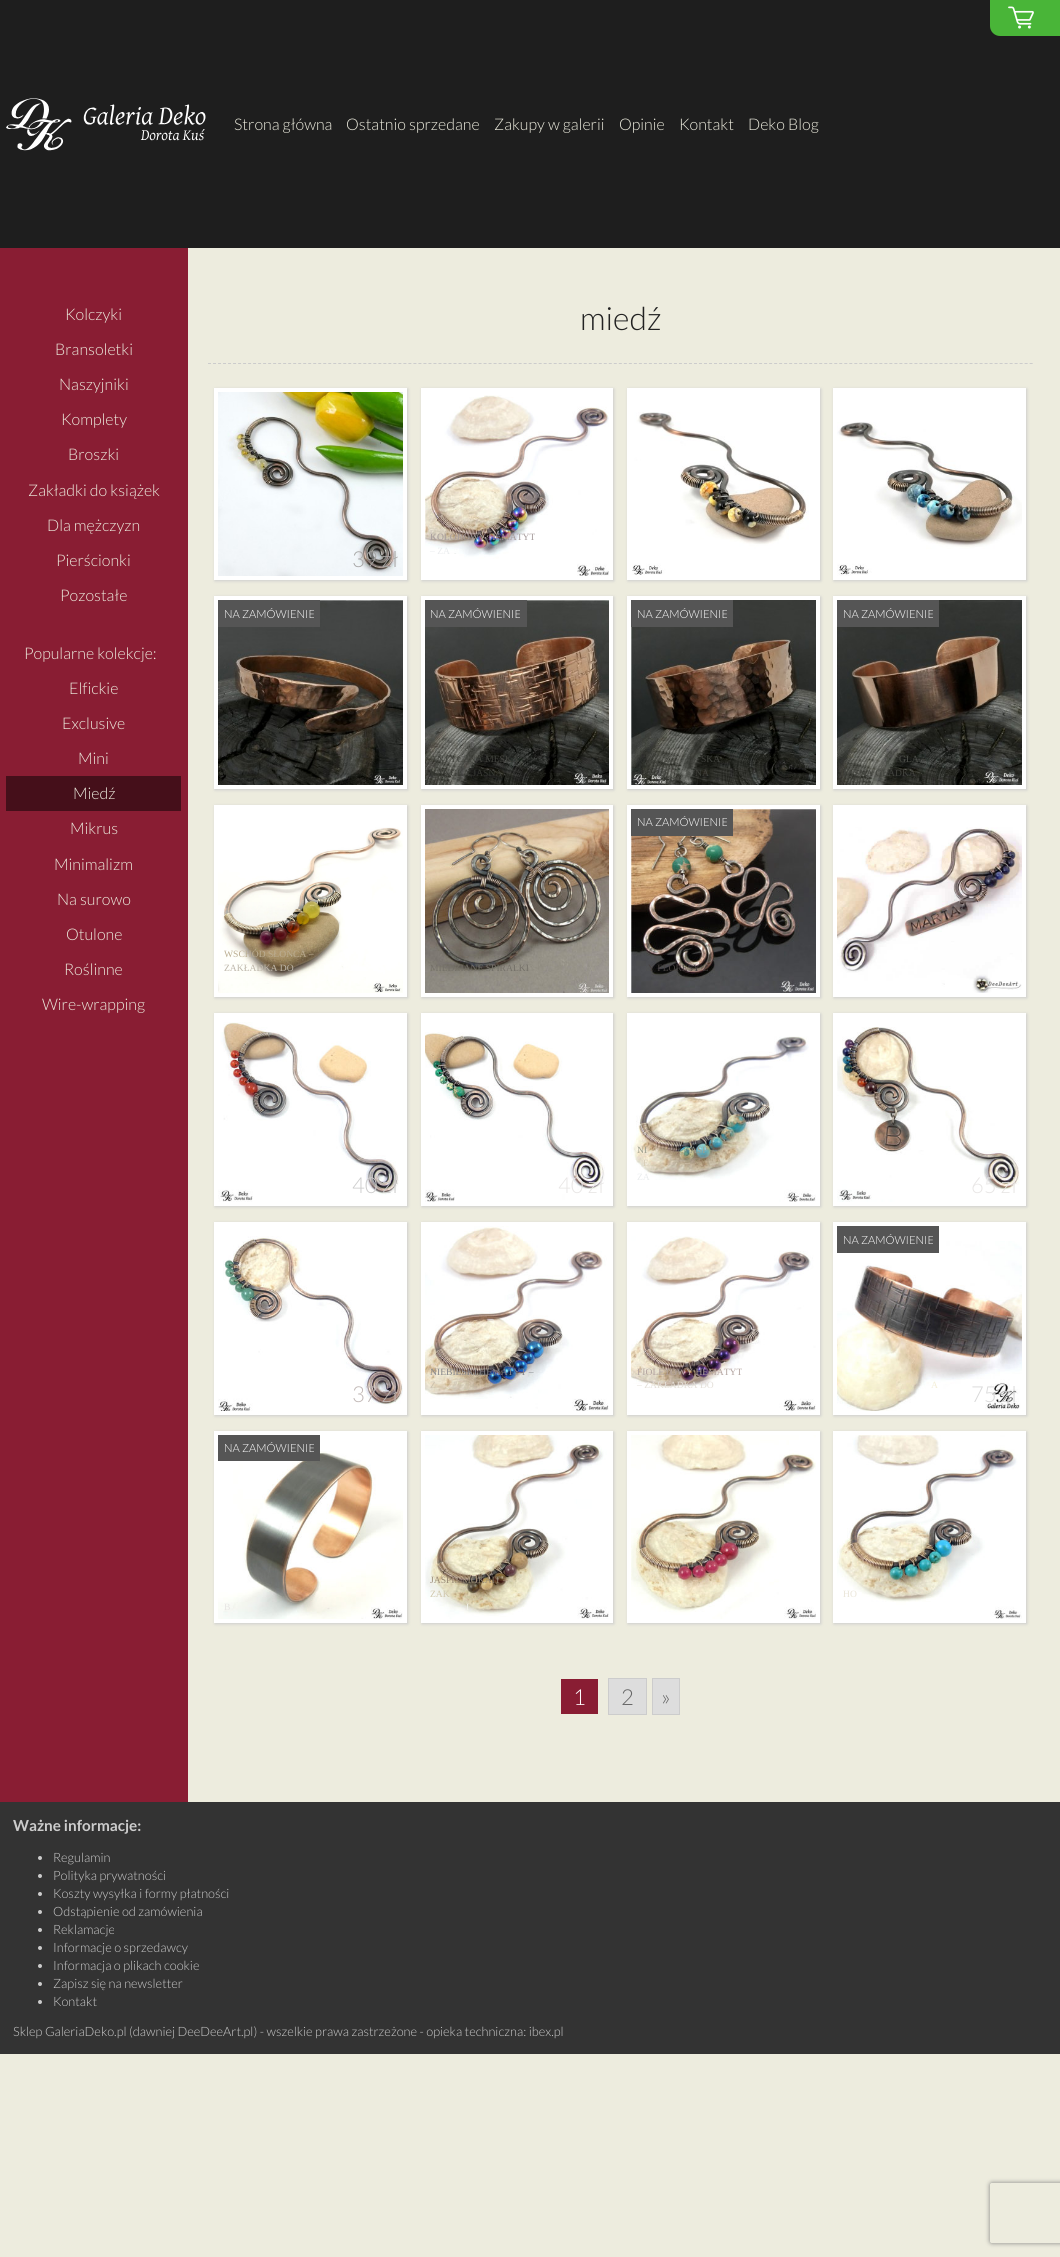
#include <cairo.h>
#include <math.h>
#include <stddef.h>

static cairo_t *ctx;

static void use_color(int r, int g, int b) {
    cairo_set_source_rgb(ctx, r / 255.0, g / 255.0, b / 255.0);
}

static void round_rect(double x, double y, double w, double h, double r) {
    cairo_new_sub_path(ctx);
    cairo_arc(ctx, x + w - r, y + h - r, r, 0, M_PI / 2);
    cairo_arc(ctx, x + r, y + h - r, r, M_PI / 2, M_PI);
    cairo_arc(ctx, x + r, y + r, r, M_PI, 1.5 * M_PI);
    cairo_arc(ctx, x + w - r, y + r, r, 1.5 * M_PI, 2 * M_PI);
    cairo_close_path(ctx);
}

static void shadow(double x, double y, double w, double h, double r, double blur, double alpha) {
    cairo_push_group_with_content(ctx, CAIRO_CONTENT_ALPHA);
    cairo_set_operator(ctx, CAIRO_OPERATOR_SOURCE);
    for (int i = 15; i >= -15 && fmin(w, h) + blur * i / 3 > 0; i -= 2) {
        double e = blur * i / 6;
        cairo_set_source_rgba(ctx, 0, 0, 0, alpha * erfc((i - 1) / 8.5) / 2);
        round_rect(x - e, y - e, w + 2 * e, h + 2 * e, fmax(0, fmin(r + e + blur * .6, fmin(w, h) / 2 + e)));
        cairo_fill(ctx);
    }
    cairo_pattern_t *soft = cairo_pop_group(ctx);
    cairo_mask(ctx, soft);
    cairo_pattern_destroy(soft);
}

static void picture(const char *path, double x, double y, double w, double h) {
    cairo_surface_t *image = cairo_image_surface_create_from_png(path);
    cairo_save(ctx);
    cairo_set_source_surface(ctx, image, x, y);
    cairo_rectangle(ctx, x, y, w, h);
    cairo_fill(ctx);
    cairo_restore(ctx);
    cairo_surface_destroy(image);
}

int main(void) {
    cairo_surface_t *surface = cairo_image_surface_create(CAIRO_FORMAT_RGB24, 1060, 2257);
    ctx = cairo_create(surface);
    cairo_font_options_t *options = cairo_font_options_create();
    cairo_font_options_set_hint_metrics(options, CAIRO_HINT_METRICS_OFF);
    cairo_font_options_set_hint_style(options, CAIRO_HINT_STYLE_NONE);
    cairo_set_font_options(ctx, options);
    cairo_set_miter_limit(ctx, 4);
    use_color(237, 236, 222);
    cairo_paint(ctx);
    use_color(30, 30, 30);
    cairo_rectangle(ctx, 0, 0, 1060, 248);
    cairo_fill(ctx);
    use_color(73, 181, 56);
    cairo_new_path(ctx);
    cairo_move_to(ctx, 990, 0);
    cairo_line_to(ctx, 1060, 0);
    cairo_line_to(ctx, 1060, 36);
    cairo_line_to(ctx, 1000, 36);
    cairo_curve_to(ctx, 994.5, 36, 990, 31.5, 990, 26);
    cairo_close_path(ctx);
    cairo_fill(ctx);
    picture("img1.png", 1008, 6, 26, 23);
    picture("img2.png", 6, 98, 200, 53);
    cairo_select_font_face(ctx, "Lato Light", CAIRO_FONT_SLANT_NORMAL, CAIRO_FONT_WEIGHT_NORMAL);
    cairo_set_font_size(ctx, 16);
    use_color(237, 236, 222);
    cairo_move_to(ctx, 234, 130);
    cairo_show_text(ctx, "Strona główna");
    cairo_move_to(ctx, 346, 130);
    cairo_show_text(ctx, "Ostatnio sprzedane");
    cairo_move_to(ctx, 494, 130);
    cairo_show_text(ctx, "Zakupy w galerii");
    cairo_move_to(ctx, 619, 130);
    cairo_show_text(ctx, "Opinie");
    cairo_move_to(ctx, 679, 130);
    cairo_show_text(ctx, "Kontakt");
    cairo_move_to(ctx, 748, 130);
    cairo_show_text(ctx, "Deko Blog");
    use_color(137, 29, 51);
    cairo_rectangle(ctx, 0, 248, 188, 1554);
    cairo_fill(ctx);
    use_color(237, 236, 222);
    cairo_move_to(ctx, 65, 320);
    cairo_show_text(ctx, "Kolczyki");
    cairo_move_to(ctx, 55, 355);
    cairo_show_text(ctx, "Bransoletki");
    cairo_move_to(ctx, 59, 390);
    cairo_show_text(ctx, "Naszyjniki");
    cairo_move_to(ctx, 61, 425);
    cairo_show_text(ctx, "Komplety");
    cairo_move_to(ctx, 68, 460);
    cairo_show_text(ctx, "Broszki");
    cairo_move_to(ctx, 28, 496);
    cairo_show_text(ctx, "Zakładki do książek");
    cairo_move_to(ctx, 47, 531);
    cairo_show_text(ctx, "Dla mężczyzn");
    cairo_move_to(ctx, 56, 566);
    cairo_show_text(ctx, "Pierścionki");
    cairo_move_to(ctx, 60, 601);
    cairo_show_text(ctx, "Pozostałe");
    cairo_move_to(ctx, 24, 659);
    cairo_show_text(ctx, "Popularne kolekcje:");
    cairo_move_to(ctx, 69, 694);
    cairo_show_text(ctx, "Elfickie");
    cairo_move_to(ctx, 62, 729);
    cairo_show_text(ctx, "Exclusive");
    cairo_move_to(ctx, 78, 764);
    cairo_show_text(ctx, "Mini");
    use_color(69, 15, 26);
    cairo_rectangle(ctx, 6, 776, 175, 35);
    cairo_fill(ctx);
    use_color(237, 236, 222);
    cairo_move_to(ctx, 73, 799);
    cairo_show_text(ctx, "Miedź");
    cairo_move_to(ctx, 70, 834);
    cairo_show_text(ctx, "Mikrus");
    cairo_move_to(ctx, 54, 870);
    cairo_show_text(ctx, "Minimalizm");
    cairo_move_to(ctx, 57, 905);
    cairo_show_text(ctx, "Na surowo");
    cairo_move_to(ctx, 66, 940);
    cairo_show_text(ctx, "Otulone");
    cairo_move_to(ctx, 64, 975);
    cairo_show_text(ctx, "Roślinne");
    cairo_move_to(ctx, 42, 1010);
    cairo_show_text(ctx, "Wire-wrapping");
    cairo_new_path(ctx);
    cairo_move_to(ctx, 208, 363.5);
    cairo_line_to(ctx, 1033, 363.5);
    use_color(204, 204, 204);
    cairo_set_line_width(ctx, 1);
    cairo_set_dash(ctx, (double[]){3, 2.01}, 2, 0);
    cairo_stroke(ctx);
    cairo_set_font_size(ctx, 32);
    use_color(34, 34, 34);
    cairo_move_to(ctx, 580, 330);
    cairo_show_text(ctx, "miedź");
    use_color(204, 204, 204);
    shadow(422, 389, 192, 192, 0, 1.5, 1);
    use_color(255, 255, 255);
    cairo_rectangle(ctx, 421, 388, 192, 192);
    cairo_fill(ctx);
    picture("img3.png", 425, 395, 184, 181);
    cairo_select_font_face(ctx, "Liberation Serif", CAIRO_FONT_SLANT_NORMAL, CAIRO_FONT_WEIGHT_NORMAL);
    cairo_set_font_size(ctx, 9.6);
    use_color(166, 156, 156);
    cairo_move_to(ctx, 430, 540);
    cairo_show_text(ctx, "KOLOROWY HEMATYT");
    use_color(234, 236, 238);
    cairo_move_to(ctx, 430, 554);
    cairo_show_text(ctx, "– ZA");
    use_color(204, 204, 204);
    shadow(628, 389, 193, 192, 0, 1.5, 1);
    use_color(255, 255, 255);
    cairo_rectangle(ctx, 627, 388, 193, 192);
    cairo_fill(ctx);
    picture("img4.png", 632, 412, 177, 163);
    use_color(204, 204, 204);
    shadow(834, 389, 193, 192, 0, 1.5, 1);
    use_color(255, 255, 255);
    cairo_rectangle(ctx, 833, 388, 193, 192);
    cairo_fill(ctx);
    picture("img5.png", 837, 422, 185, 154);
    use_color(204, 204, 204);
    shadow(215, 389, 193, 192, 0, 1.5, 1);
    use_color(255, 255, 255);
    cairo_rectangle(ctx, 214, 388, 193, 192);
    cairo_fill(ctx);
    picture("img6.png", 218, 392, 185, 184);
    cairo_select_font_face(ctx, "Lato Light", CAIRO_FONT_SLANT_NORMAL, CAIRO_FONT_WEIGHT_NORMAL);
    cairo_set_font_size(ctx, 22);
    use_color(168, 167, 166);
    cairo_move_to(ctx, 352, 567);
    cairo_show_text(ctx, "39 zł");
    use_color(204, 204, 204);
    shadow(215, 597, 193, 193, 0, 1.5, 1);
    use_color(255, 255, 255);
    cairo_rectangle(ctx, 214, 596, 193, 193);
    cairo_fill(ctx);
    picture("img7.png", 218, 600, 185, 185);
    use_color(85, 85, 85);
    cairo_rectangle(ctx, 218, 600, 102, 27);
    cairo_fill(ctx);
    cairo_set_font_size(ctx, 11.25);
    use_color(255, 255, 255);
    cairo_move_to(ctx, 224, 618);
    cairo_show_text(ctx, "NA ZAMÓWIENIE");
    use_color(204, 204, 204);
    shadow(422, 597, 192, 193, 0, 1.5, 1);
    use_color(255, 255, 255);
    cairo_rectangle(ctx, 421, 596, 192, 193);
    cairo_fill(ctx);
    picture("img8.png", 425, 600, 184, 185);
    use_color(85, 85, 85);
    cairo_rectangle(ctx, 425, 600, 102, 27);
    cairo_fill(ctx);
    use_color(255, 255, 255);
    cairo_move_to(ctx, 430, 618);
    cairo_show_text(ctx, "NA ZAMÓWIENIE");
    cairo_select_font_face(ctx, "Liberation Serif", CAIRO_FONT_SLANT_NORMAL, CAIRO_FONT_WEIGHT_NORMAL);
    cairo_set_font_size(ctx, 9.6);
    use_color(65, 66, 61);
    cairo_move_to(ctx, 430, 762);
    cairo_show_text(ctx, "ANTYCZNA MĘSKA");
    use_color(55, 56, 51);
    cairo_move_to(ctx, 430, 776);
    cairo_show_text(ctx, "BANGLA JASNA");
    use_color(204, 204, 204);
    shadow(628, 597, 193, 193, 0, 1.5, 1);
    use_color(255, 255, 255);
    cairo_rectangle(ctx, 627, 596, 193, 193);
    cairo_fill(ctx);
    picture("img9.png", 631, 600, 185, 185);
    use_color(85, 85, 85);
    cairo_rectangle(ctx, 631, 600, 102, 27);
    cairo_fill(ctx);
    cairo_select_font_face(ctx, "Lato Light", CAIRO_FONT_SLANT_NORMAL, CAIRO_FONT_WEIGHT_NORMAL);
    cairo_set_font_size(ctx, 11.25);
    use_color(255, 255, 255);
    cairo_move_to(ctx, 637, 618);
    cairo_show_text(ctx, "NA ZAMÓWIENIE");
    cairo_select_font_face(ctx, "Liberation Serif", CAIRO_FONT_SLANT_NORMAL, CAIRO_FONT_WEIGHT_NORMAL);
    cairo_set_font_size(ctx, 9.6);
    use_color(65, 66, 61);
    cairo_move_to(ctx, 665, 762);
    cairo_show_text(ctx, "Z");
    cairo_move_to(ctx, 701, 762);
    cairo_show_text(ctx, "SKA");
    cairo_move_to(ctx, 695, 776);
    cairo_show_text(ctx, "NA");
    use_color(204, 204, 204);
    shadow(834, 597, 193, 193, 0, 1.5, 1);
    use_color(255, 255, 255);
    cairo_rectangle(ctx, 833, 596, 193, 193);
    cairo_fill(ctx);
    picture("img10.png", 837, 600, 185, 185);
    use_color(85, 85, 85);
    cairo_rectangle(ctx, 837, 600, 102, 27);
    cairo_fill(ctx);
    cairo_select_font_face(ctx, "Lato Light", CAIRO_FONT_SLANT_NORMAL, CAIRO_FONT_WEIGHT_NORMAL);
    cairo_set_font_size(ctx, 11.25);
    use_color(255, 255, 255);
    cairo_move_to(ctx, 843, 618);
    cairo_show_text(ctx, "NA ZAMÓWIENIE");
    cairo_select_font_face(ctx, "Liberation Serif", CAIRO_FONT_SLANT_NORMAL, CAIRO_FONT_WEIGHT_NORMAL);
    cairo_set_font_size(ctx, 9.6);
    use_color(76, 78, 72);
    cairo_move_to(ctx, 899, 762);
    cairo_show_text(ctx, "GLA –");
    use_color(65, 66, 61);
    cairo_move_to(ctx, 843, 776);
    cairo_show_text(ctx, "JASNA GŁADKA");
    use_color(204, 204, 204);
    shadow(215, 806, 193, 192, 0, 1.5, 1);
    use_color(255, 255, 255);
    cairo_rectangle(ctx, 214, 805, 193, 192);
    cairo_fill(ctx);
    picture("img11.png", 218, 827, 185, 166);
    use_color(187, 173, 146);
    cairo_move_to(ctx, 224, 957);
    cairo_show_text(ctx, "WSCHÓD SŁOŃCA –");
    use_color(190, 183, 170);
    cairo_move_to(ctx, 224, 971);
    cairo_show_text(ctx, "ZAKŁADKA DO");
    use_color(204, 204, 204);
    shadow(422, 806, 192, 192, 0, 1.5, 1);
    use_color(255, 255, 255);
    cairo_rectangle(ctx, 421, 805, 192, 192);
    cairo_fill(ctx);
    picture("img12.png", 425, 809, 184, 184);
    use_color(116, 112, 104);
    cairo_move_to(ctx, 430, 971);
    cairo_show_text(ctx, "MIEDZIANE SPIRALKI");
    use_color(204, 204, 204);
    shadow(628, 806, 193, 192, 0, 1.5, 1);
    use_color(255, 255, 255);
    cairo_rectangle(ctx, 627, 805, 193, 192);
    cairo_fill(ctx);
    picture("img13.png", 631, 809, 185, 184);
    use_color(85, 85, 85);
    cairo_rectangle(ctx, 631, 809, 102, 27);
    cairo_fill(ctx);
    cairo_select_font_face(ctx, "Lato Light", CAIRO_FONT_SLANT_NORMAL, CAIRO_FONT_WEIGHT_NORMAL);
    cairo_set_font_size(ctx, 11.25);
    use_color(255, 255, 255);
    cairo_move_to(ctx, 637, 826);
    cairo_show_text(ctx, "NA ZAMÓWIENIE");
    cairo_select_font_face(ctx, "Liberation Serif", CAIRO_FONT_SLANT_NORMAL, CAIRO_FONT_WEIGHT_NORMAL);
    cairo_set_font_size(ctx, 9.6);
    use_color(72, 66, 65);
    cairo_move_to(ctx, 648, 971);
    cairo_show_text(ctx, "Y FLORESY Z");
    use_color(204, 204, 204);
    shadow(834, 806, 193, 192, 0, 1.5, 1);
    use_color(255, 255, 255);
    cairo_rectangle(ctx, 833, 805, 193, 192);
    cairo_fill(ctx);
    picture("img14.png", 837, 827, 185, 166);
    use_color(204, 204, 204);
    shadow(628, 1014, 193, 193, 0, 1.5, 1);
    use_color(255, 255, 255);
    cairo_rectangle(ctx, 627, 1013, 193, 193);
    cairo_fill(ctx);
    picture("img15.png", 631, 1036, 185, 166);
    use_color(156, 158, 142);
    cairo_move_to(ctx, 637, 1153);
    cairo_show_text(ctx, "NI");
    cairo_move_to(ctx, 690, 1153);
    cairo_show_text(ctx, "ASP");
    use_color(216, 205, 183);
    cairo_move_to(ctx, 643, 1166);
    cairo_show_text(ctx, "E");
    cairo_move_to(ctx, 685, 1166);
    cairo_show_text(ctx, "–");
    use_color(234, 236, 238);
    cairo_move_to(ctx, 637, 1180);
    cairo_show_text(ctx, "ZA");
    use_color(204, 204, 204);
    shadow(215, 1014, 193, 193, 0, 1.5, 1);
    use_color(255, 255, 255);
    cairo_rectangle(ctx, 214, 1013, 193, 193);
    cairo_fill(ctx);
    picture("img16.png", 218, 1022, 181, 180);
    cairo_select_font_face(ctx, "Lato Light", CAIRO_FONT_SLANT_NORMAL, CAIRO_FONT_WEIGHT_NORMAL);
    cairo_set_font_size(ctx, 22);
    use_color(204, 204, 204);
    cairo_move_to(ctx, 352, 1193);
    cairo_show_text(ctx, "40 zł");
    use_color(204, 204, 204);
    shadow(422, 1014, 192, 193, 0, 1.5, 1);
    use_color(255, 255, 255);
    cairo_rectangle(ctx, 421, 1013, 192, 193);
    cairo_fill(ctx);
    picture("img17.png", 425, 1032, 180, 170);
    use_color(232, 230, 229);
    cairo_move_to(ctx, 558, 1193);
    cairo_show_text(ctx, "40 zł");
    use_color(204, 204, 204);
    shadow(834, 1014, 193, 193, 0, 1.5, 1);
    use_color(255, 255, 255);
    cairo_rectangle(ctx, 833, 1013, 193, 193);
    cairo_fill(ctx);
    picture("img18.png", 837, 1027, 183, 175);
    use_color(232, 230, 229);
    cairo_move_to(ctx, 971, 1193);
    cairo_show_text(ctx, "65 zł");
    use_color(204, 204, 204);
    shadow(422, 1223, 192, 193, 0, 1.5, 1);
    use_color(255, 255, 255);
    cairo_rectangle(ctx, 421, 1222, 192, 193);
    cairo_fill(ctx);
    picture("img19.png", 425, 1226, 184, 185);
    cairo_select_font_face(ctx, "Liberation Serif", CAIRO_FONT_SLANT_NORMAL, CAIRO_FONT_WEIGHT_NORMAL);
    cairo_set_font_size(ctx, 9.6);
    use_color(134, 135, 140);
    cairo_move_to(ctx, 430, 1375);
    cairo_show_text(ctx, "NIEBIESKI HEMATYT –");
    use_color(202, 192, 173);
    cairo_move_to(ctx, 430, 1388);
    cairo_show_text(ctx, "Z");
    use_color(204, 204, 204);
    shadow(628, 1223, 193, 193, 0, 1.5, 1);
    use_color(255, 255, 255);
    cairo_rectangle(ctx, 627, 1222, 193, 193);
    cairo_fill(ctx);
    picture("img20.png", 631, 1236, 185, 175);
    use_color(179, 164, 160);
    cairo_move_to(ctx, 637, 1375);
    cairo_show_text(ctx, "FIOLETOWY HEMATYT");
    use_color(228, 223, 216);
    cairo_move_to(ctx, 637, 1388);
    cairo_show_text(ctx, "– ZAKŁADKA DO");
    use_color(204, 204, 204);
    shadow(834, 1223, 193, 193, 0, 1.5, 1);
    use_color(255, 255, 255);
    cairo_rectangle(ctx, 833, 1222, 193, 193);
    cairo_fill(ctx);
    picture("img21.png", 837, 1241, 185, 170);
    use_color(85, 85, 85);
    cairo_rectangle(ctx, 837, 1226, 102, 27);
    cairo_fill(ctx);
    cairo_select_font_face(ctx, "Lato Light", CAIRO_FONT_SLANT_NORMAL, CAIRO_FONT_WEIGHT_NORMAL);
    cairo_set_font_size(ctx, 11.25);
    use_color(255, 255, 255);
    cairo_move_to(ctx, 843, 1244);
    cairo_show_text(ctx, "NA ZAMÓWIENIE");
    cairo_select_font_face(ctx, "Liberation Serif", CAIRO_FONT_SLANT_NORMAL, CAIRO_FONT_WEIGHT_NORMAL);
    cairo_set_font_size(ctx, 9.6);
    use_color(243, 238, 215);
    cairo_move_to(ctx, 931, 1388);
    cairo_show_text(ctx, "A");
    cairo_select_font_face(ctx, "Lato Light", CAIRO_FONT_SLANT_NORMAL, CAIRO_FONT_WEIGHT_NORMAL);
    cairo_set_font_size(ctx, 22);
    use_color(217, 217, 217);
    cairo_move_to(ctx, 971, 1402);
    cairo_show_text(ctx, "75 zł");
    use_color(204, 204, 204);
    shadow(215, 1223, 193, 193, 0, 1.5, 1);
    use_color(255, 255, 255);
    cairo_rectangle(ctx, 214, 1222, 193, 193);
    cairo_fill(ctx);
    picture("img22.png", 218, 1236, 185, 175);
    use_color(193, 184, 182);
    cairo_move_to(ctx, 352, 1402);
    cairo_show_text(ctx, "37 zł");
    use_color(204, 204, 204);
    shadow(215, 1432, 193, 192, 0, 1.5, 1);
    use_color(255, 255, 255);
    cairo_rectangle(ctx, 214, 1431, 193, 192);
    cairo_fill(ctx);
    picture("img23.png", 218, 1451, 185, 168);
    use_color(85, 85, 85);
    cairo_rectangle(ctx, 218, 1435, 102, 26);
    cairo_fill(ctx);
    cairo_set_font_size(ctx, 11.25);
    use_color(255, 255, 255);
    cairo_move_to(ctx, 224, 1452);
    cairo_show_text(ctx, "NA ZAMÓWIENIE");
    cairo_select_font_face(ctx, "Liberation Serif", CAIRO_FONT_SLANT_NORMAL, CAIRO_FONT_WEIGHT_NORMAL);
    cairo_set_font_size(ctx, 9.6);
    use_color(232, 230, 229);
    cairo_move_to(ctx, 224, 1610);
    cairo_show_text(ctx, "B");
    use_color(204, 204, 204);
    shadow(422, 1432, 192, 192, 0, 1.5, 1);
    use_color(255, 255, 255);
    cairo_rectangle(ctx, 421, 1431, 192, 192);
    cairo_fill(ctx);
    picture("img24.png", 425, 1435, 184, 184);
    use_color(153, 138, 116);
    cairo_move_to(ctx, 430, 1583);
    cairo_show_text(ctx, "JASPIS MOKAIT");
    use_color(165, 146, 121);
    cairo_move_to(ctx, 503, 1583);
    cairo_show_text(ctx, "–");
    use_color(208, 199, 172);
    cairo_move_to(ctx, 430, 1597);
    cairo_show_text(ctx, "ZAK");
    use_color(244, 245, 239);
    cairo_move_to(ctx, 466, 1610);
    cairo_show_text(ctx, "I");
    use_color(204, 204, 204);
    shadow(628, 1432, 193, 192, 0, 1.5, 1);
    use_color(255, 255, 255);
    cairo_rectangle(ctx, 627, 1431, 193, 192);
    cairo_fill(ctx);
    picture("img25.png", 631, 1435, 185, 184);
    use_color(228, 212, 185);
    cairo_move_to(ctx, 693, 1583);
    cairo_show_text(ctx, "–");
    use_color(204, 204, 204);
    shadow(834, 1432, 193, 192, 0, 1.5, 1);
    use_color(255, 255, 255);
    cairo_rectangle(ctx, 833, 1431, 193, 192);
    cairo_fill(ctx);
    picture("img26.png", 837, 1435, 185, 184);
    use_color(234, 229, 216);
    cairo_move_to(ctx, 843, 1597);
    cairo_show_text(ctx, "HO");
    use_color(137, 29, 51);
    cairo_rectangle(ctx, 561, 1679, 37, 35);
    cairo_fill(ctx);
    cairo_select_font_face(ctx, "Lato Light", CAIRO_FONT_SLANT_NORMAL, CAIRO_FONT_WEIGHT_NORMAL);
    cairo_set_font_size(ctx, 22);
    use_color(255, 255, 255);
    cairo_move_to(ctx, 573, 1705);
    cairo_show_text(ctx, "1");
    use_color(221, 221, 221);
    cairo_rectangle(ctx, 608.5, 1678.5, 38, 36);
    cairo_fill_preserve(ctx);
    use_color(204, 204, 204);
    cairo_set_dash(ctx, NULL, 0, 0);
    cairo_stroke(ctx);
    use_color(102, 102, 102);
    cairo_move_to(ctx, 621, 1705);
    cairo_show_text(ctx, "2");
    use_color(221, 221, 221);
    cairo_rectangle(ctx, 652.5, 1678.5, 27, 36);
    cairo_fill_preserve(ctx);
    use_color(204, 204, 204);
    cairo_stroke(ctx);
    use_color(102, 102, 102);
    cairo_move_to(ctx, 661, 1705);
    cairo_show_text(ctx, "»");
    use_color(51, 51, 51);
    cairo_rectangle(ctx, 0, 1802, 1060, 252);
    cairo_fill(ctx);
    cairo_select_font_face(ctx, "Lato", CAIRO_FONT_SLANT_NORMAL, CAIRO_FONT_WEIGHT_BOLD);
    cairo_set_font_size(ctx, 15.25);
    use_color(204, 204, 204);
    cairo_move_to(ctx, 13, 1831);
    cairo_show_text(ctx, "Ważne informacje:");
    cairo_new_path(ctx);
    cairo_arc(ctx, 40, 1858, 2, 0, 2 * M_PI);
    cairo_fill(ctx);
    cairo_select_font_face(ctx, "Lato Light", CAIRO_FONT_SLANT_NORMAL, CAIRO_FONT_WEIGHT_NORMAL);
    cairo_set_font_size(ctx, 12.8);
    cairo_move_to(ctx, 53, 1862);
    cairo_show_text(ctx, "Regulamin");
    cairo_new_path(ctx);
    cairo_arc(ctx, 40, 1876, 2, 0, 2 * M_PI);
    cairo_fill(ctx);
    cairo_move_to(ctx, 53, 1880);
    cairo_show_text(ctx, "Polityka prywatności");
    cairo_new_path(ctx);
    cairo_arc(ctx, 40, 1894, 2, 0, 2 * M_PI);
    cairo_fill(ctx);
    cairo_move_to(ctx, 53, 1898);
    cairo_show_text(ctx, "Koszty wysyłka i formy płatności");
    cairo_new_path(ctx);
    cairo_arc(ctx, 40, 1912, 2, 0, 2 * M_PI);
    cairo_fill(ctx);
    cairo_move_to(ctx, 53, 1916);
    cairo_show_text(ctx, "Odstąpienie od zamówienia");
    cairo_new_path(ctx);
    cairo_arc(ctx, 40, 1930, 2, 0, 2 * M_PI);
    cairo_fill(ctx);
    cairo_move_to(ctx, 53, 1934);
    cairo_show_text(ctx, "Reklamacje");
    cairo_new_path(ctx);
    cairo_arc(ctx, 40, 1948, 2, 0, 2 * M_PI);
    cairo_fill(ctx);
    cairo_move_to(ctx, 53, 1952);
    cairo_show_text(ctx, "Informacje o sprzedawcy");
    cairo_new_path(ctx);
    cairo_arc(ctx, 40, 1966, 2, 0, 2 * M_PI);
    cairo_fill(ctx);
    cairo_move_to(ctx, 53, 1970);
    cairo_show_text(ctx, "Informacja o plikach cookie");
    cairo_new_path(ctx);
    cairo_arc(ctx, 40, 1984, 2, 0, 2 * M_PI);
    cairo_fill(ctx);
    cairo_move_to(ctx, 53, 1988);
    cairo_show_text(ctx, "Zapisz się na newsletter");
    cairo_new_path(ctx);
    cairo_arc(ctx, 40, 2002, 2, 0, 2 * M_PI);
    cairo_fill(ctx);
    cairo_move_to(ctx, 53, 2006);
    cairo_show_text(ctx, "Kontakt");
    cairo_move_to(ctx, 13, 2036);
    cairo_show_text(ctx, "Sklep GaleriaDeko.pl (dawniej DeeDeeArt.pl) - wszelkie prawa zastrzeżone - opieka techniczna: ibex.pl");
    cairo_save(ctx);
    cairo_set_fill_rule(ctx, CAIRO_FILL_RULE_EVEN_ODD);
    cairo_new_path(ctx);
    cairo_move_to(ctx, 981, 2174);
    cairo_line_to(ctx, 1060, 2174);
    cairo_line_to(ctx, 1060, 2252);
    cairo_line_to(ctx, 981, 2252);
    cairo_close_path(ctx);
    cairo_move_to(ctx, 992, 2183);
    cairo_line_to(ctx, 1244, 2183);
    cairo_curve_to(ctx, 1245, 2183, 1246, 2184, 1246, 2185);
    cairo_line_to(ctx, 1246, 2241);
    cairo_curve_to(ctx, 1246, 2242, 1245, 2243, 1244, 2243);
    cairo_line_to(ctx, 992, 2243);
    cairo_curve_to(ctx, 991, 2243, 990, 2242, 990, 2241);
    cairo_line_to(ctx, 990, 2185);
    cairo_curve_to(ctx, 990, 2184, 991, 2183, 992, 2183);
    cairo_close_path(ctx);
    cairo_clip(ctx);
    use_color(128, 128, 128);
    shadow(990, 2183, 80, 60, 2, 2.5, 1);
    cairo_restore(ctx);
    cairo_surface_write_to_png(surface, "result.png");
    cairo_font_options_destroy(options);
    cairo_destroy(ctx);
    cairo_surface_destroy(surface);
    return 0;
}
